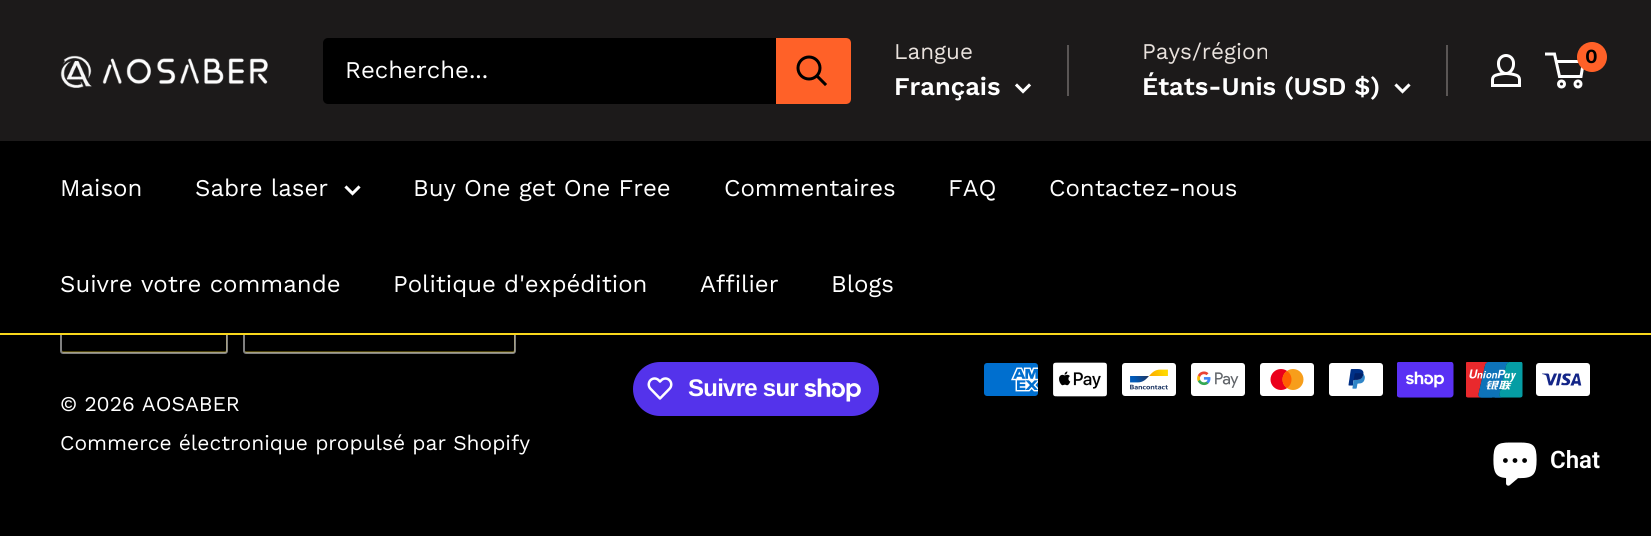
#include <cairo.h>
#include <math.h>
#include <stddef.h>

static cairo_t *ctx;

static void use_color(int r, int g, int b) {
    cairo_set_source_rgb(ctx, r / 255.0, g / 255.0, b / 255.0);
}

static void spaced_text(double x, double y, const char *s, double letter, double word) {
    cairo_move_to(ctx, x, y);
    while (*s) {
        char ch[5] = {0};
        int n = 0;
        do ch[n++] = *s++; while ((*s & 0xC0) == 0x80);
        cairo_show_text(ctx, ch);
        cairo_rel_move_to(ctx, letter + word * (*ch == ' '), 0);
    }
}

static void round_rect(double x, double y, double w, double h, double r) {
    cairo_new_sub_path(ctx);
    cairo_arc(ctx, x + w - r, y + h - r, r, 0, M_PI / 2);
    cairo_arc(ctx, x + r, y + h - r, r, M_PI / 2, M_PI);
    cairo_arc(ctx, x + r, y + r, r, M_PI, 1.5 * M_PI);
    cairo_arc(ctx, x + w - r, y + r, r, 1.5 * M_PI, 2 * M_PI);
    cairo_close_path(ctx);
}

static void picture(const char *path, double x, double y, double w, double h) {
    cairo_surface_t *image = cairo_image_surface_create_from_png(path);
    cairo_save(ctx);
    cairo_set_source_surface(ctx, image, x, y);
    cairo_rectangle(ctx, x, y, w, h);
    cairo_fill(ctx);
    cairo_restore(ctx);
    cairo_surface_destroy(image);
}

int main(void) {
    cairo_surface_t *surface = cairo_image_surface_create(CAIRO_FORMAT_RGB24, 1651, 536);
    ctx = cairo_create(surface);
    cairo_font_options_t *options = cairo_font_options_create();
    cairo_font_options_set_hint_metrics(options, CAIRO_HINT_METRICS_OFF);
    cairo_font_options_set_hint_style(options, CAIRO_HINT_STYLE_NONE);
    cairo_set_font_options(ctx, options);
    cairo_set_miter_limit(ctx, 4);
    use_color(0, 0, 0);
    cairo_paint(ctx);
    use_color(28, 26, 26);
    cairo_rectangle(ctx, 0, 0, 1651, 141);
    cairo_fill(ctx);
    picture("img1.png", 60, 55, 208, 33);
    use_color(0, 0, 0);
    round_rect(323, 38, 528, 66, 5);
    cairo_fill(ctx);
    cairo_select_font_face(ctx, "Work Sans", CAIRO_FONT_SLANT_NORMAL, CAIRO_FONT_WEIGHT_NORMAL);
    cairo_set_font_size(ctx, 24);
    use_color(255, 255, 255);
    cairo_move_to(ctx, 345, 78);
    cairo_show_text(ctx, "Recherche...");
    use_color(255, 97, 40);
    cairo_new_path(ctx);
    cairo_move_to(ctx, 776, 38);
    cairo_line_to(ctx, 846, 38);
    cairo_curve_to(ctx, 849, 38, 851, 40, 851, 43);
    cairo_line_to(ctx, 851, 99);
    cairo_curve_to(ctx, 851, 102, 849, 104, 846, 104);
    cairo_line_to(ctx, 776, 104);
    cairo_close_path(ctx);
    cairo_fill(ctx);
    cairo_new_path(ctx);
    cairo_move_to(ctx, 825, 84);
    cairo_line_to(ctx, 817.5, 76.5);
    use_color(0, 0, 0);
    cairo_set_line_width(ctx, 3);
    cairo_set_line_cap(ctx, CAIRO_LINE_CAP_SQUARE);
    cairo_stroke(ctx);
    cairo_arc(ctx, 809, 68, 11, 0, 2 * M_PI);
    cairo_set_line_cap(ctx, CAIRO_LINE_CAP_BUTT);
    cairo_stroke(ctx);
    cairo_set_font_size(ctx, 22.5);
    use_color(233, 226, 221);
    cairo_move_to(ctx, 894, 59);
    cairo_show_text(ctx, "Langue");
    cairo_select_font_face(ctx, "Work Sans SemiBold", CAIRO_FONT_SLANT_NORMAL, CAIRO_FONT_WEIGHT_NORMAL);
    cairo_set_font_size(ctx, 25.5);
    use_color(255, 255, 255);
    cairo_move_to(ctx, 894, 95);
    cairo_show_text(ctx, "Français");
    cairo_new_path(ctx);
    cairo_move_to(ctx, 1029, 85.5);
    cairo_line_to(ctx, 1023, 91.5);
    cairo_line_to(ctx, 1017, 85.5);
    cairo_set_line_cap(ctx, CAIRO_LINE_CAP_SQUARE);
    cairo_stroke(ctx);
    use_color(90, 86, 85);
    cairo_rectangle(ctx, 1067, 45, 2, 51);
    cairo_fill(ctx);
    cairo_select_font_face(ctx, "Work Sans", CAIRO_FONT_SLANT_NORMAL, CAIRO_FONT_WEIGHT_NORMAL);
    cairo_set_font_size(ctx, 22.5);
    use_color(233, 226, 221);
    cairo_move_to(ctx, 1142, 59);
    cairo_show_text(ctx, "Pays/région");
    cairo_select_font_face(ctx, "Work Sans SemiBold", CAIRO_FONT_SLANT_NORMAL, CAIRO_FONT_WEIGHT_NORMAL);
    cairo_set_font_size(ctx, 25.5);
    use_color(255, 255, 255);
    cairo_move_to(ctx, 1142, 95);
    cairo_show_text(ctx, "États-Unis (USD $)");
    cairo_new_path(ctx);
    cairo_move_to(ctx, 1408.5, 85.5);
    cairo_line_to(ctx, 1402.5, 91.5);
    cairo_line_to(ctx, 1396.5, 85.5);
    cairo_stroke(ctx);
    use_color(90, 86, 85);
    cairo_rectangle(ctx, 1446, 45, 2, 51);
    cairo_fill(ctx);
    picture("img2.png", 1491, 54, 30, 33);
    cairo_arc(ctx, 1561.5, 84, 3, 0, 2 * M_PI);
    use_color(255, 255, 255);
    cairo_set_line_cap(ctx, CAIRO_LINE_CAP_BUTT);
    cairo_stroke(ctx);
    cairo_arc(ctx, 1578, 84, 3, 0, 2 * M_PI);
    cairo_stroke(ctx);
    cairo_new_path(ctx);
    cairo_move_to(ctx, 1556, 61.5);
    cairo_line_to(ctx, 1583.5, 61.5);
    cairo_line_to(ctx, 1581, 76.5);
    cairo_line_to(ctx, 1559.5, 76.5);
    cairo_line_to(ctx, 1554.5, 54);
    cairo_line_to(ctx, 1545, 54);
    cairo_stroke(ctx);
    use_color(255, 97, 40);
    cairo_arc(ctx, 1592, 57, 15, 0, 2 * M_PI);
    cairo_fill(ctx);
    cairo_set_font_size(ctx, 20);
    use_color(0, 0, 0);
    cairo_move_to(ctx, 1585, 63);
    cairo_show_text(ctx, "0");
    use_color(75, 65, 8);
    cairo_new_path(ctx);
    cairo_move_to(ctx, 62, 350);
    cairo_line_to(ctx, 62, 352);
    cairo_curve_to(ctx, 62, 352, 63, 353, 64, 353);
    cairo_line_to(ctx, 226, 353);
    cairo_curve_to(ctx, 226, 353, 227, 352, 227, 352);
    cairo_line_to(ctx, 227, 310);
    cairo_curve_to(ctx, 227, 309, 227, 308, 226, 308);
    cairo_line_to(ctx, 226, 350);
    cairo_curve_to(ctx, 226, 350, 226, 351, 225, 351);
    cairo_line_to(ctx, 63, 351);
    cairo_curve_to(ctx, 62, 351, 62, 350, 62, 350);
    cairo_close_path(ctx);
    cairo_fill(ctx);
    round_rect(61, 307, 166, 46, 2);
    cairo_set_source_rgba(ctx, 1, 1, 1, 0.5);
    cairo_set_line_width(ctx, 2);
    cairo_stroke(ctx);
    use_color(75, 65, 8);
    cairo_new_path(ctx);
    cairo_move_to(ctx, 245, 351);
    cairo_line_to(ctx, 245, 352);
    cairo_line_to(ctx, 246, 353);
    cairo_line_to(ctx, 514, 353);
    cairo_curve_to(ctx, 514, 353, 515, 352, 515, 352);
    cairo_line_to(ctx, 515, 309);
    cairo_line_to(ctx, 514, 308);
    cairo_line_to(ctx, 514, 343);
    cairo_curve_to(ctx, 514, 345, 515, 351, 513, 351);
    cairo_close_path(ctx);
    cairo_fill(ctx);
    round_rect(244, 307, 271, 46, 2);
    cairo_set_source_rgba(ctx, 1, 1, 1, 0.5);
    cairo_stroke(ctx);
    use_color(0, 0, 0);
    cairo_rectangle(ctx, 60, 306, 456, 27);
    cairo_fill(ctx);
    use_color(249, 215, 28);
    cairo_rectangle(ctx, 0, 333, 1651, 2);
    cairo_fill(ctx);
    cairo_select_font_face(ctx, "Work Sans", CAIRO_FONT_SLANT_NORMAL, CAIRO_FONT_WEIGHT_NORMAL);
    cairo_set_font_size(ctx, 24);
    use_color(255, 255, 255);
    cairo_move_to(ctx, 60, 196);
    cairo_show_text(ctx, "Maison");
    cairo_move_to(ctx, 195, 196);
    cairo_show_text(ctx, "Sabre laser");
    cairo_new_path(ctx);
    cairo_move_to(ctx, 358.5, 187.5);
    cairo_line_to(ctx, 352.5, 193.5);
    cairo_line_to(ctx, 346.5, 187.5);
    cairo_set_line_width(ctx, 3);
    cairo_set_line_cap(ctx, CAIRO_LINE_CAP_SQUARE);
    cairo_stroke(ctx);
    cairo_move_to(ctx, 413, 196);
    cairo_show_text(ctx, "Buy One get One Free");
    cairo_move_to(ctx, 724, 196);
    cairo_show_text(ctx, "Commentaires");
    cairo_move_to(ctx, 948, 196);
    cairo_show_text(ctx, "FAQ");
    cairo_move_to(ctx, 1049, 196);
    cairo_show_text(ctx, "Contactez-nous");
    cairo_move_to(ctx, 60, 292);
    cairo_show_text(ctx, "Suivre votre commande");
    cairo_move_to(ctx, 393, 292);
    cairo_show_text(ctx, "Politique d'expédition");
    cairo_move_to(ctx, 700, 292);
    cairo_show_text(ctx, "Affilier");
    cairo_move_to(ctx, 831, 292);
    cairo_show_text(ctx, "Blogs");
    use_color(84, 51, 235);
    round_rect(633, 362, 246, 54, 27);
    cairo_fill(ctx);
    picture("img3.png", 647, 377, 26, 23);
    cairo_select_font_face(ctx, "Liberation Sans", CAIRO_FONT_SLANT_NORMAL, CAIRO_FONT_WEIGHT_BOLD);
    use_color(255, 255, 255);
    spaced_text(688, 396, "Suivre sur", -0.75, 0);
    picture("img4.png", 804, 378, 57, 24);
    picture("img5.png", 984, 363, 54, 33);
    picture("img6.png", 1053, 362, 54, 35);
    picture("img7.png", 1122, 363, 54, 33);
    picture("img8.png", 1191, 363, 54, 33);
    picture("img9.png", 1260, 363, 54, 33);
    picture("img10.png", 1329, 363, 54, 33);
    picture("img11.png", 1397, 362, 57, 36);
    picture("img12.png", 1466, 362, 57, 36);
    picture("img13.png", 1536, 363, 54, 33);
    cairo_select_font_face(ctx, "Work Sans", CAIRO_FONT_SLANT_NORMAL, CAIRO_FONT_WEIGHT_NORMAL);
    cairo_set_font_size(ctx, 21);
    cairo_move_to(ctx, 60, 411);
    cairo_show_text(ctx, "© 2026 AOSABER");
    cairo_move_to(ctx, 60, 450);
    cairo_show_text(ctx, "Commerce électronique propulsé par Shopify");
    picture("img14.png", 1493, 442, 44, 44);
    cairo_select_font_face(ctx, "Roboto SemiBold", CAIRO_FONT_SLANT_NORMAL, CAIRO_FONT_WEIGHT_NORMAL);
    cairo_set_font_size(ctx, 24);
    cairo_move_to(ctx, 1550, 468);
    cairo_show_text(ctx, "Chat");
    cairo_surface_write_to_png(surface, "result.png");
    cairo_font_options_destroy(options);
    cairo_destroy(ctx);
    cairo_surface_destroy(surface);
    return 0;
}
